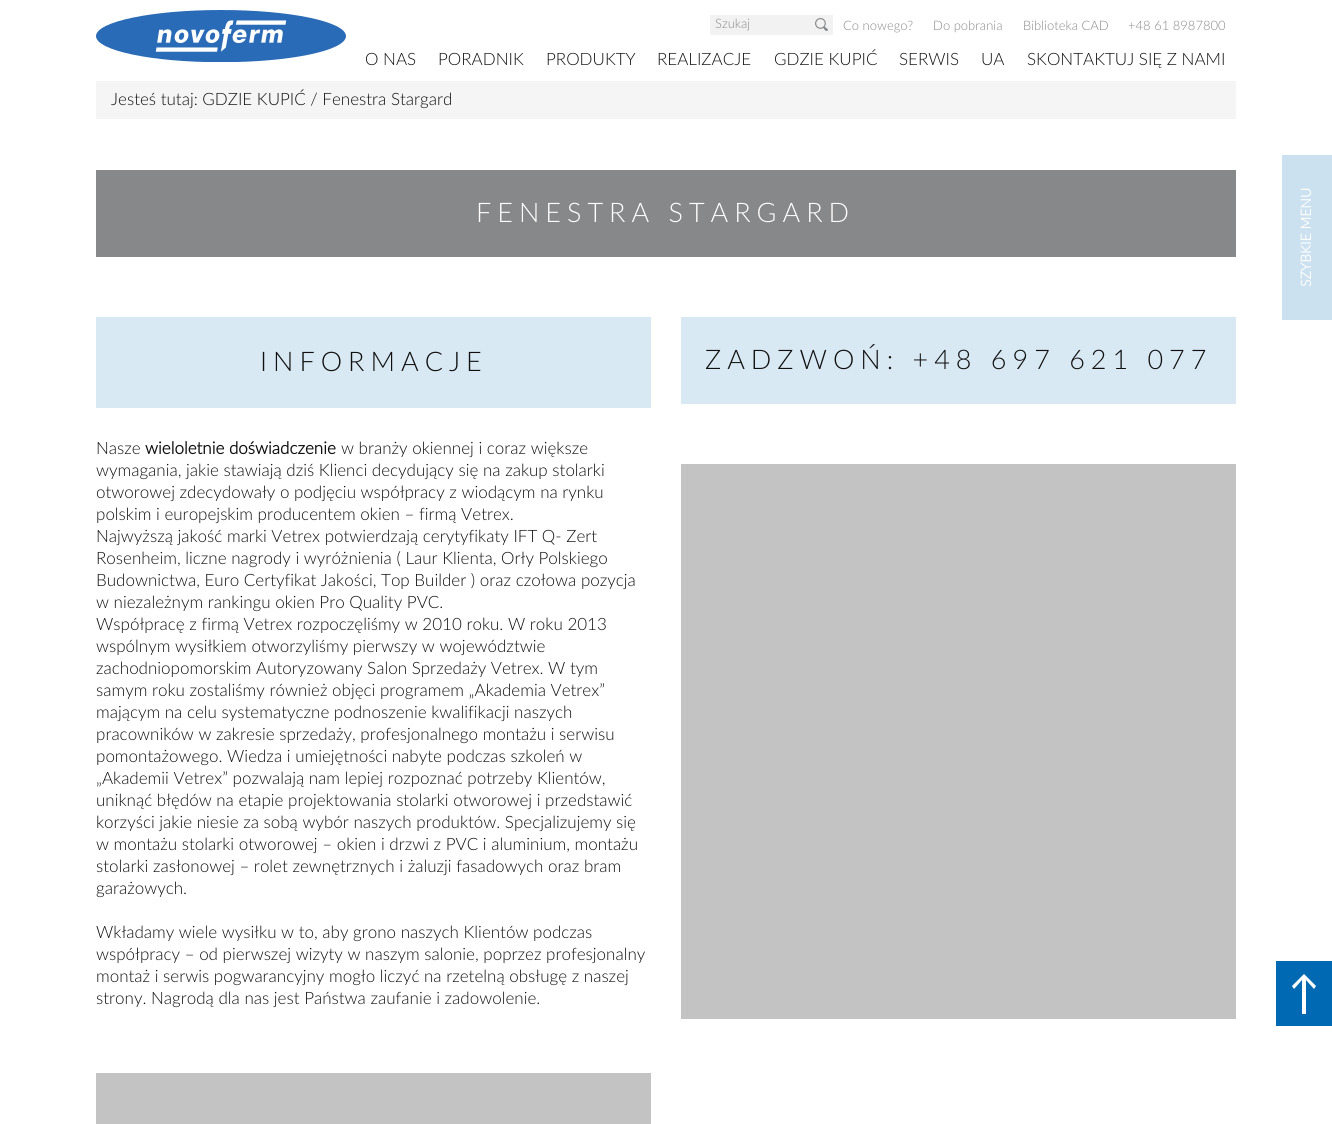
#include <cairo.h>
#include <math.h>
#include <stddef.h>

static cairo_t *ctx;

static void use_color(int r, int g, int b) {
    cairo_set_source_rgb(ctx, r / 255.0, g / 255.0, b / 255.0);
}

static void spaced_text(double x, double y, const char *s, double letter, double word) {
    cairo_move_to(ctx, x, y);
    while (*s) {
        char ch[5] = {0};
        int n = 0;
        do ch[n++] = *s++; while ((*s & 0xC0) == 0x80);
        cairo_show_text(ctx, ch);
        cairo_rel_move_to(ctx, letter + word * (*ch == ' '), 0);
    }
}

static void picture(const char *path, double x, double y, double w, double h) {
    cairo_surface_t *image = cairo_image_surface_create_from_png(path);
    cairo_save(ctx);
    cairo_set_source_surface(ctx, image, x, y);
    cairo_rectangle(ctx, x, y, w, h);
    cairo_fill(ctx);
    cairo_restore(ctx);
    cairo_surface_destroy(image);
}

int main(void) {
    cairo_surface_t *surface = cairo_image_surface_create(CAIRO_FORMAT_RGB24, 1332, 1124);
    ctx = cairo_create(surface);
    cairo_font_options_t *options = cairo_font_options_create();
    cairo_font_options_set_hint_metrics(options, CAIRO_HINT_METRICS_OFF);
    cairo_font_options_set_hint_style(options, CAIRO_HINT_STYLE_NONE);
    cairo_set_font_options(ctx, options);
    cairo_set_miter_limit(ctx, 4);
    use_color(255, 255, 255);
    cairo_paint(ctx);
    picture("img1.png", 96, 10, 250, 52);
    use_color(242, 242, 242);
    cairo_rectangle(ctx, 710, 15, 123, 20);
    cairo_fill(ctx);
    picture("img2.png", 815, 18, 13, 13);
    cairo_select_font_face(ctx, "Lato Light", CAIRO_FONT_SLANT_NORMAL, CAIRO_FONT_WEIGHT_NORMAL);
    cairo_set_font_size(ctx, 13);
    use_color(135, 136, 138);
    cairo_move_to(ctx, 715, 28);
    cairo_show_text(ctx, "Szukaj");
    cairo_move_to(ctx, 843, 30);
    cairo_show_text(ctx, "Co nowego?");
    cairo_move_to(ctx, 933, 30);
    cairo_show_text(ctx, "Do pobrania");
    cairo_move_to(ctx, 1023, 30);
    cairo_show_text(ctx, "Biblioteka CAD");
    cairo_move_to(ctx, 1128, 30);
    cairo_show_text(ctx, "+48 61 8987800");
    cairo_set_font_size(ctx, 17);
    use_color(16, 16, 16);
    cairo_move_to(ctx, 365, 65);
    cairo_show_text(ctx, "O NAS");
    cairo_move_to(ctx, 438, 65);
    cairo_show_text(ctx, "PORADNIK");
    cairo_move_to(ctx, 546, 65);
    cairo_show_text(ctx, "PRODUKTY");
    cairo_move_to(ctx, 657, 65);
    cairo_show_text(ctx, "REALIZACJE");
    cairo_move_to(ctx, 774, 65);
    cairo_show_text(ctx, "GDZIE KUPIĆ");
    cairo_move_to(ctx, 899, 65);
    cairo_show_text(ctx, "SERWIS");
    cairo_move_to(ctx, 981, 65);
    cairo_show_text(ctx, "UA");
    cairo_move_to(ctx, 1027, 65);
    cairo_show_text(ctx, "SKONTAKTUJ SIĘ Z NAMI");
    use_color(245, 245, 245);
    cairo_rectangle(ctx, 96, 81, 1140, 38);
    cairo_fill(ctx);
    use_color(16, 16, 16);
    cairo_move_to(ctx, 111, 105);
    cairo_show_text(ctx, "Jesteś tutaj: GDZIE KUPIĆ / Fenestra Stargard");
    use_color(135, 136, 138);
    cairo_rectangle(ctx, 96, 170, 1140, 87);
    cairo_fill(ctx);
    cairo_set_font_size(ctx, 27);
    use_color(255, 255, 255);
    spaced_text(476, 222, "FENESTRA STARGARD", 6, 0);
    use_color(217, 233, 244);
    cairo_rectangle(ctx, 96, 317, 555, 91);
    cairo_fill(ctx);
    use_color(16, 16, 16);
    spaced_text(260, 371, "INFORMACJE", 6, 0);
    cairo_set_font_size(ctx, 17);
    cairo_move_to(ctx, 96, 454);
    cairo_show_text(ctx, "Nasze");
    cairo_select_font_face(ctx, "Lato", CAIRO_FONT_SLANT_NORMAL, CAIRO_FONT_WEIGHT_BOLD);
    cairo_move_to(ctx, 145, 454);
    cairo_show_text(ctx, "wieloletnie doświadczenie");
    cairo_select_font_face(ctx, "Lato Light", CAIRO_FONT_SLANT_NORMAL, CAIRO_FONT_WEIGHT_NORMAL);
    cairo_move_to(ctx, 341, 454);
    cairo_show_text(ctx, "w branży okiennej i coraz większe");
    cairo_move_to(ctx, 96, 476);
    cairo_show_text(ctx, "wymagania, jakie stawiają dziś Klienci decydujący się na zakup stolarki");
    cairo_move_to(ctx, 96, 498);
    cairo_show_text(ctx, "otworowej zdecydowały o podjęciu współpracy z wiodącym na rynku");
    cairo_move_to(ctx, 96, 520);
    cairo_show_text(ctx, "polskim i europejskim producentem okien – firmą Vetrex.");
    cairo_move_to(ctx, 96, 542);
    cairo_show_text(ctx, "Najwyższą jakość marki Vetrex potwierdzają cerytyfikaty IFT Q- Zert");
    cairo_move_to(ctx, 96, 564);
    cairo_show_text(ctx, "Rosenheim, liczne nagrody i wyróżnienia ( Laur Klienta, Orły Polskiego");
    cairo_move_to(ctx, 96, 586);
    cairo_show_text(ctx, "Budownictwa, Euro Certyfikat Jakości, Top Builder ) oraz czołowa pozycja");
    cairo_move_to(ctx, 96, 608);
    cairo_show_text(ctx, "w niezależnym rankingu okien Pro Quality PVC.");
    cairo_move_to(ctx, 96, 630);
    cairo_show_text(ctx, "Współpracę z firmą Vetrex rozpoczęliśmy w 2010 roku. W roku 2013");
    cairo_move_to(ctx, 96, 652);
    cairo_show_text(ctx, "wspólnym wysiłkiem otworzyliśmy pierwszy w województwie");
    cairo_move_to(ctx, 96, 674);
    cairo_show_text(ctx, "zachodniopomorskim Autoryzowany Salon Sprzedaży Vetrex. W tym");
    cairo_move_to(ctx, 96, 696);
    cairo_show_text(ctx, "samym roku zostaliśmy również objęci programem „Akademia Vetrex”");
    cairo_move_to(ctx, 96, 718);
    cairo_show_text(ctx, "mającym na celu systematyczne podnoszenie kwalifikacji naszych");
    cairo_move_to(ctx, 96, 740);
    cairo_show_text(ctx, "pracowników w zakresie sprzedaży, profesjonalnego montażu i serwisu");
    cairo_move_to(ctx, 96, 762);
    cairo_show_text(ctx, "pomontażowego. Wiedza i umiejętności nabyte podczas szkoleń w");
    cairo_move_to(ctx, 96, 784);
    cairo_show_text(ctx, "„Akademii Vetrex” pozwalają nam lepiej rozpoznać potrzeby Klientów,");
    cairo_move_to(ctx, 96, 806);
    cairo_show_text(ctx, "uniknąć błędów na etapie projektowania stolarki otworowej i przedstawić");
    cairo_move_to(ctx, 96, 828);
    cairo_show_text(ctx, "korzyści jakie niesie za sobą wybór naszych produktów. Specjalizujemy się");
    cairo_move_to(ctx, 96, 850);
    cairo_show_text(ctx, "w montażu stolarki otworowej – okien i drzwi z PVC i aluminium, montażu");
    cairo_move_to(ctx, 96, 872);
    cairo_show_text(ctx, "stolarki zasłonowej – rolet zewnętrznych i żaluzji fasadowych oraz bram");
    cairo_move_to(ctx, 96, 894);
    cairo_show_text(ctx, "garażowych.");
    cairo_move_to(ctx, 96, 938);
    cairo_show_text(ctx, "Wkładamy wiele wysiłku w to, aby grono naszych Klientów podczas");
    cairo_move_to(ctx, 96, 960);
    cairo_show_text(ctx, "współpracy – od pierwszej wizyty w naszym salonie, poprzez profesjonalny");
    cairo_move_to(ctx, 96, 982);
    cairo_show_text(ctx, "montaż i serwis pogwarancyjny mogło liczyć na rzetelną obsługę z naszej");
    cairo_move_to(ctx, 96, 1004);
    cairo_show_text(ctx, "strony. Nagrodą dla nas jest Państwa zaufanie i zadowolenie.");
    use_color(195, 195, 195);
    cairo_rectangle(ctx, 96, 1073, 555, 51);
    cairo_fill(ctx);
    use_color(217, 233, 244);
    cairo_rectangle(ctx, 681, 317, 555, 87);
    cairo_fill(ctx);
    cairo_set_font_size(ctx, 27);
    use_color(16, 16, 16);
    spaced_text(705, 369, "ZADZWOŃ: +48 697 621 077", 6, 0);
    use_color(195, 195, 195);
    cairo_rectangle(ctx, 681, 464, 555, 555);
    cairo_fill(ctx);
    use_color(204, 225, 240);
    cairo_rectangle(ctx, 1282, 155, 50, 165);
    cairo_fill(ctx);
    cairo_select_font_face(ctx, "Lato", CAIRO_FONT_SLANT_NORMAL, CAIRO_FONT_WEIGHT_BOLD);
    cairo_set_font_size(ctx, 14);
    use_color(255, 255, 255);
    cairo_save(ctx);
    cairo_translate(ctx, 1311, 287);
    cairo_rotate(ctx, -90 * M_PI / 180);
    cairo_move_to(ctx, 0, 0);
    cairo_show_text(ctx, "SZYBKIE MENU");
    cairo_restore(ctx);
    use_color(0, 105, 180);
    cairo_rectangle(ctx, 1276, 961, 56, 65);
    cairo_fill(ctx);
    use_color(255, 255, 255);
    cairo_new_path(ctx);
    cairo_move_to(ctx, 1302, 976);
    cairo_line_to(ctx, 1304, 974);
    cairo_line_to(ctx, 1316, 986);
    cairo_line_to(ctx, 1314, 989);
    cairo_line_to(ctx, 1306, 980);
    cairo_line_to(ctx, 1306, 1014);
    cairo_line_to(ctx, 1302, 1014);
    cairo_line_to(ctx, 1302, 980);
    cairo_line_to(ctx, 1294, 989);
    cairo_line_to(ctx, 1292, 986);
    cairo_close_path(ctx);
    cairo_fill(ctx);
    cairo_surface_write_to_png(surface, "result.png");
    cairo_font_options_destroy(options);
    cairo_destroy(ctx);
    cairo_surface_destroy(surface);
    return 0;
}
